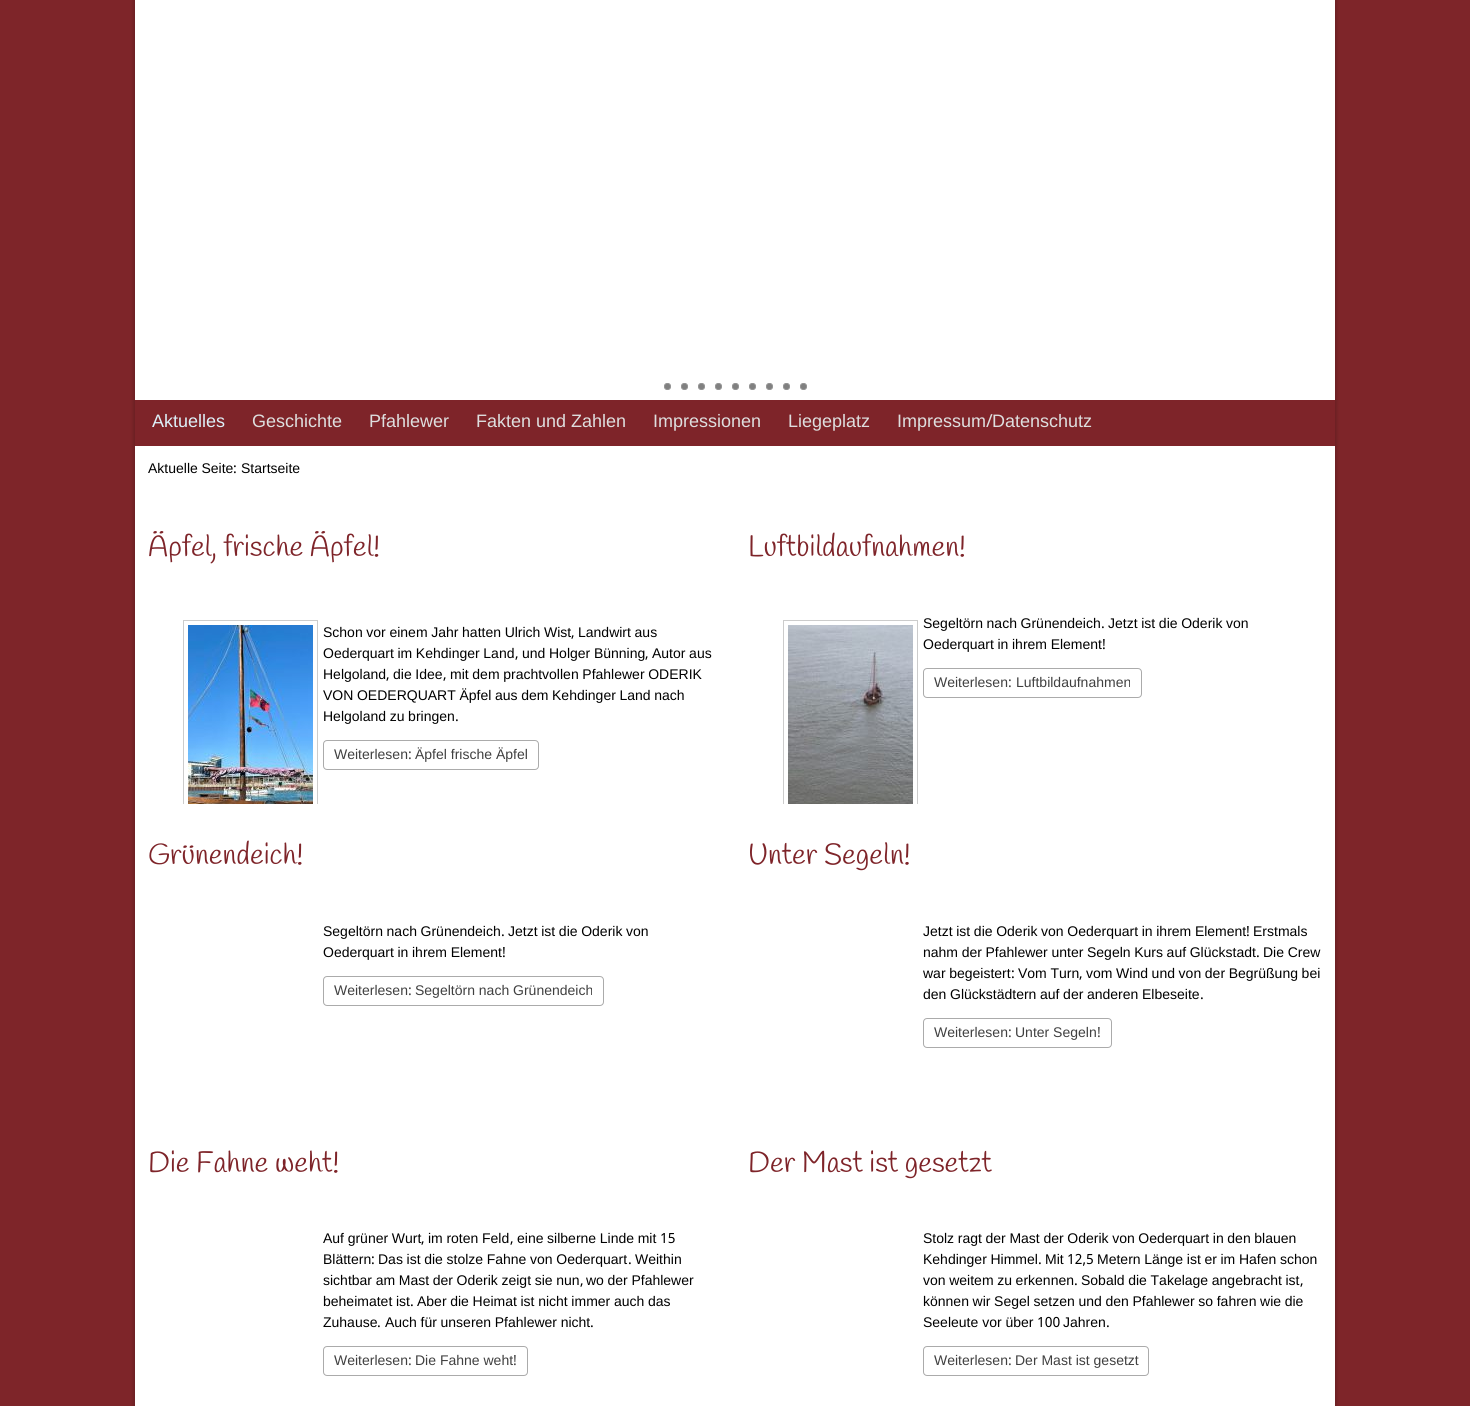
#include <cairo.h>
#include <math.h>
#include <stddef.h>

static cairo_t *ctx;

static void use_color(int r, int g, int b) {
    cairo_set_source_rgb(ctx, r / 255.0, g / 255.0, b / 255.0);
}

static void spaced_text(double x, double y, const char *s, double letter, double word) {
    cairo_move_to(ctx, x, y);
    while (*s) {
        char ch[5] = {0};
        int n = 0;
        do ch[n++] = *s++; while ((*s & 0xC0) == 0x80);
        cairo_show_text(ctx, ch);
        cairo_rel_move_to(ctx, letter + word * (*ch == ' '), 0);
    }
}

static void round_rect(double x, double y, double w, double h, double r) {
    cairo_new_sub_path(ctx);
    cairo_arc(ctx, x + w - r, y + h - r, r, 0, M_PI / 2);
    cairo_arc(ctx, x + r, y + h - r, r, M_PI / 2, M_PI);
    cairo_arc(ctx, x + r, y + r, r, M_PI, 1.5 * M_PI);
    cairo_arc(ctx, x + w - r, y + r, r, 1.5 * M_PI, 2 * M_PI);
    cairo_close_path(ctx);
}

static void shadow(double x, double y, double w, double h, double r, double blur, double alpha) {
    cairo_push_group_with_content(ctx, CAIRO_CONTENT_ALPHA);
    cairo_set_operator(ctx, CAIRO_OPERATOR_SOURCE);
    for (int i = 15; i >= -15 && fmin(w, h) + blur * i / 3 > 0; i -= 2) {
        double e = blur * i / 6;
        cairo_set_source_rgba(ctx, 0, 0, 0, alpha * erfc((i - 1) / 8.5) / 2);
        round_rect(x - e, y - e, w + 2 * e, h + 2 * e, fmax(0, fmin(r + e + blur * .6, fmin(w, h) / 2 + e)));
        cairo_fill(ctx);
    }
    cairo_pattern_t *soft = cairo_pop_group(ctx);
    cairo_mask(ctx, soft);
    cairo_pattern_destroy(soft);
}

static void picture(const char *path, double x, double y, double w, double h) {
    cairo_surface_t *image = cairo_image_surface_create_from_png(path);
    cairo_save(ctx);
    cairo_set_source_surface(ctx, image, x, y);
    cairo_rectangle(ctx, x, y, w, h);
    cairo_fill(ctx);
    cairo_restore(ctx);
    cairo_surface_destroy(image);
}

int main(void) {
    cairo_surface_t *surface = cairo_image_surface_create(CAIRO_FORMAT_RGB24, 1470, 1406);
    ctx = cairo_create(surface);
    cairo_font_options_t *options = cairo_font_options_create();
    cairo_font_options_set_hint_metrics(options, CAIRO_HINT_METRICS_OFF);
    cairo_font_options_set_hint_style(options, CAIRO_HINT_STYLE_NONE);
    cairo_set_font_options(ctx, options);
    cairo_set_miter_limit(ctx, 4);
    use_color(126, 37, 41);
    cairo_paint(ctx);
    use_color(0, 0, 0);
    shadow(133, -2, 1204, 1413, 0, 1.5, 0.15);
    use_color(255, 255, 255);
    cairo_rectangle(ctx, 135, 0, 1200, 1406);
    cairo_fill(ctx);
    use_color(128, 128, 128);
    round_rect(664.5, 383.5, 6, 6, 2.5);
    cairo_fill_preserve(ctx);
    use_color(148, 148, 148);
    cairo_set_line_width(ctx, 1);
    cairo_stroke(ctx);
    use_color(128, 128, 128);
    round_rect(681.5, 383.5, 6, 6, 2.5);
    cairo_fill_preserve(ctx);
    use_color(148, 148, 148);
    cairo_stroke(ctx);
    use_color(128, 128, 128);
    round_rect(698.5, 383.5, 6, 6, 2.5);
    cairo_fill_preserve(ctx);
    use_color(148, 148, 148);
    cairo_stroke(ctx);
    use_color(128, 128, 128);
    round_rect(715.5, 383.5, 6, 6, 2.5);
    cairo_fill_preserve(ctx);
    use_color(148, 148, 148);
    cairo_stroke(ctx);
    use_color(128, 128, 128);
    round_rect(732.5, 383.5, 6, 6, 2.5);
    cairo_fill_preserve(ctx);
    use_color(148, 148, 148);
    cairo_stroke(ctx);
    use_color(128, 128, 128);
    round_rect(749.5, 383.5, 6, 6, 2.5);
    cairo_fill_preserve(ctx);
    use_color(148, 148, 148);
    cairo_stroke(ctx);
    use_color(128, 128, 128);
    round_rect(766.5, 383.5, 6, 6, 2.5);
    cairo_fill_preserve(ctx);
    use_color(148, 148, 148);
    cairo_stroke(ctx);
    use_color(128, 128, 128);
    round_rect(783.5, 383.5, 6, 6, 2.5);
    cairo_fill_preserve(ctx);
    use_color(148, 148, 148);
    cairo_stroke(ctx);
    use_color(128, 128, 128);
    round_rect(800.5, 383.5, 6, 6, 2.5);
    cairo_fill_preserve(ctx);
    use_color(148, 148, 148);
    cairo_stroke(ctx);
    use_color(126, 36, 41);
    cairo_rectangle(ctx, 135, 400, 1200, 46);
    cairo_fill(ctx);
    cairo_select_font_face(ctx, "Liberation Sans", CAIRO_FONT_SLANT_NORMAL, CAIRO_FONT_WEIGHT_NORMAL);
    cairo_set_font_size(ctx, 18);
    use_color(221, 240, 248);
    cairo_move_to(ctx, 152, 427);
    cairo_show_text(ctx, "Aktuelles");
    use_color(222, 222, 222);
    cairo_move_to(ctx, 252, 427);
    cairo_show_text(ctx, "Geschichte");
    cairo_move_to(ctx, 369, 427);
    cairo_show_text(ctx, "Pfahlewer");
    cairo_move_to(ctx, 476, 427);
    cairo_show_text(ctx, "Fakten und Zahlen");
    cairo_move_to(ctx, 653, 427);
    cairo_show_text(ctx, "Impressionen");
    cairo_move_to(ctx, 788, 427);
    cairo_show_text(ctx, "Liegeplatz");
    cairo_move_to(ctx, 897, 427);
    cairo_show_text(ctx, "Impressum");
    cairo_select_font_face(ctx, "Khmer", CAIRO_FONT_SLANT_NORMAL, CAIRO_FONT_WEIGHT_NORMAL);
    cairo_move_to(ctx, 986, 427);
    cairo_show_text(ctx, "/");
    cairo_select_font_face(ctx, "Liberation Sans", CAIRO_FONT_SLANT_NORMAL, CAIRO_FONT_WEIGHT_NORMAL);
    cairo_move_to(ctx, 992, 427);
    cairo_show_text(ctx, "Datenschutz");
    cairo_set_font_size(ctx, 14);
    use_color(0, 0, 0);
    spaced_text(148, 473, "Aktuelle Seite", 0, -0.25);
    cairo_select_font_face(ctx, "Khmer", CAIRO_FONT_SLANT_NORMAL, CAIRO_FONT_WEIGHT_NORMAL);
    cairo_move_to(ctx, 233, 473);
    cairo_show_text(ctx, ":");
    cairo_select_font_face(ctx, "Liberation Sans", CAIRO_FONT_SLANT_NORMAL, CAIRO_FONT_WEIGHT_NORMAL);
    cairo_move_to(ctx, 241, 473);
    cairo_show_text(ctx, "Startseite");
    cairo_select_font_face(ctx, "Handlee", CAIRO_FONT_SLANT_NORMAL, CAIRO_FONT_WEIGHT_NORMAL);
    cairo_set_font_size(ctx, 29);
    use_color(126, 36, 41);
    cairo_move_to(ctx, 148, 556);
    cairo_show_text(ctx, "Äpfel, frische Äpfel!");
    cairo_save(ctx);
    cairo_rectangle(ctx, 159, 584, 164, 220);
    cairo_clip(ctx);
    cairo_rectangle(ctx, 183.5, 620.5, 134, 209);
    use_color(204, 204, 204);
    cairo_stroke(ctx);
    cairo_restore(ctx);
    picture("img1.png", 188, 625, 125, 179);
    cairo_select_font_face(ctx, "Liberation Sans", CAIRO_FONT_SLANT_NORMAL, CAIRO_FONT_WEIGHT_NORMAL);
    cairo_set_font_size(ctx, 14);
    use_color(0, 0, 0);
    spaced_text(323, 637, "Schon vor einem Jahr hatten Ulrich Wist", 0, -0.25);
    cairo_select_font_face(ctx, "Khmer", CAIRO_FONT_SLANT_NORMAL, CAIRO_FONT_WEIGHT_NORMAL);
    cairo_move_to(ctx, 571, 637);
    cairo_show_text(ctx, ",");
    cairo_select_font_face(ctx, "Liberation Sans", CAIRO_FONT_SLANT_NORMAL, CAIRO_FONT_WEIGHT_NORMAL);
    spaced_text(578, 637, "Landwirt aus", 0, -0.25);
    spaced_text(323, 658, "Oederquart im Kehdinger Land", 0, -0.25);
    cairo_select_font_face(ctx, "Khmer", CAIRO_FONT_SLANT_NORMAL, CAIRO_FONT_WEIGHT_NORMAL);
    cairo_move_to(ctx, 515, 658);
    cairo_show_text(ctx, ",");
    cairo_select_font_face(ctx, "Liberation Sans", CAIRO_FONT_SLANT_NORMAL, CAIRO_FONT_WEIGHT_NORMAL);
    spaced_text(522, 658, "und Holger Bünning", 0, -0.25);
    cairo_select_font_face(ctx, "Khmer", CAIRO_FONT_SLANT_NORMAL, CAIRO_FONT_WEIGHT_NORMAL);
    cairo_move_to(ctx, 645, 658);
    cairo_show_text(ctx, ",");
    cairo_select_font_face(ctx, "Liberation Sans", CAIRO_FONT_SLANT_NORMAL, CAIRO_FONT_WEIGHT_NORMAL);
    spaced_text(652, 658, "Autor aus", 0, -0.25);
    cairo_move_to(ctx, 323, 679);
    cairo_show_text(ctx, "Helgoland");
    cairo_select_font_face(ctx, "Khmer", CAIRO_FONT_SLANT_NORMAL, CAIRO_FONT_WEIGHT_NORMAL);
    cairo_move_to(ctx, 386, 679);
    cairo_show_text(ctx, ",");
    cairo_select_font_face(ctx, "Liberation Sans", CAIRO_FONT_SLANT_NORMAL, CAIRO_FONT_WEIGHT_NORMAL);
    spaced_text(393, 679, "die Idee", 0, -0.25);
    cairo_select_font_face(ctx, "Khmer", CAIRO_FONT_SLANT_NORMAL, CAIRO_FONT_WEIGHT_NORMAL);
    cairo_move_to(ctx, 443, 679);
    cairo_show_text(ctx, ",");
    cairo_select_font_face(ctx, "Liberation Sans", CAIRO_FONT_SLANT_NORMAL, CAIRO_FONT_WEIGHT_NORMAL);
    spaced_text(450, 679, "mit dem prachtvollen Pfahlewer ODERIK", 0, -0.25);
    spaced_text(323, 700, "VON OEDERQUART Äpfel aus dem Kehdinger Land nach", 0, -0.25);
    spaced_text(323, 721, "Helgoland zu bringen", 0, -0.25);
    cairo_select_font_face(ctx, "Khmer", CAIRO_FONT_SLANT_NORMAL, CAIRO_FONT_WEIGHT_NORMAL);
    cairo_move_to(ctx, 455, 721);
    cairo_show_text(ctx, ".");
    round_rect(323.5, 740.5, 215, 29, 3.5);
    use_color(171, 171, 171);
    cairo_stroke(ctx);
    cairo_select_font_face(ctx, "Liberation Sans", CAIRO_FONT_SLANT_NORMAL, CAIRO_FONT_WEIGHT_NORMAL);
    use_color(64, 64, 64);
    cairo_move_to(ctx, 334, 759);
    cairo_show_text(ctx, "Weiterlesen");
    cairo_select_font_face(ctx, "Khmer", CAIRO_FONT_SLANT_NORMAL, CAIRO_FONT_WEIGHT_NORMAL);
    cairo_move_to(ctx, 408, 759);
    cairo_show_text(ctx, ":");
    cairo_select_font_face(ctx, "Liberation Sans", CAIRO_FONT_SLANT_NORMAL, CAIRO_FONT_WEIGHT_NORMAL);
    cairo_move_to(ctx, 415, 759);
    cairo_show_text(ctx, "Äpfel frische Äpfel");
    cairo_select_font_face(ctx, "Handlee", CAIRO_FONT_SLANT_NORMAL, CAIRO_FONT_WEIGHT_NORMAL);
    cairo_set_font_size(ctx, 29);
    use_color(126, 36, 41);
    cairo_move_to(ctx, 748, 556);
    cairo_show_text(ctx, "Luftbildaufnahmen!");
    cairo_save(ctx);
    cairo_rectangle(ctx, 759, 584, 164, 220);
    cairo_clip(ctx);
    cairo_rectangle(ctx, 783.5, 620.5, 134, 209);
    use_color(204, 204, 204);
    cairo_stroke(ctx);
    cairo_restore(ctx);
    picture("img2.png", 788, 625, 125, 179);
    cairo_select_font_face(ctx, "Liberation Sans", CAIRO_FONT_SLANT_NORMAL, CAIRO_FONT_WEIGHT_NORMAL);
    cairo_set_font_size(ctx, 14);
    use_color(0, 0, 0);
    spaced_text(923, 628, "Segeltörn nach Grünendeich", 0, -0.25);
    cairo_select_font_face(ctx, "Khmer", CAIRO_FONT_SLANT_NORMAL, CAIRO_FONT_WEIGHT_NORMAL);
    cairo_move_to(ctx, 1101, 628);
    cairo_show_text(ctx, ".");
    cairo_select_font_face(ctx, "Liberation Sans", CAIRO_FONT_SLANT_NORMAL, CAIRO_FONT_WEIGHT_NORMAL);
    spaced_text(1108, 628, "Jetzt ist die Oderik von", 0, -0.25);
    spaced_text(923, 649, "Oederquart in ihrem Element", 0, -0.25);
    cairo_select_font_face(ctx, "Khmer", CAIRO_FONT_SLANT_NORMAL, CAIRO_FONT_WEIGHT_NORMAL);
    cairo_move_to(ctx, 1102, 649);
    cairo_show_text(ctx, "!");
    round_rect(923.5, 668.5, 218, 29, 3.5);
    use_color(171, 171, 171);
    cairo_stroke(ctx);
    cairo_select_font_face(ctx, "Liberation Sans", CAIRO_FONT_SLANT_NORMAL, CAIRO_FONT_WEIGHT_NORMAL);
    use_color(64, 64, 64);
    cairo_move_to(ctx, 934, 687);
    cairo_show_text(ctx, "Weiterlesen");
    cairo_select_font_face(ctx, "Khmer", CAIRO_FONT_SLANT_NORMAL, CAIRO_FONT_WEIGHT_NORMAL);
    cairo_move_to(ctx, 1008, 687);
    cairo_show_text(ctx, ":");
    cairo_select_font_face(ctx, "Liberation Sans", CAIRO_FONT_SLANT_NORMAL, CAIRO_FONT_WEIGHT_NORMAL);
    cairo_move_to(ctx, 1016, 687);
    cairo_show_text(ctx, "Luftbildaufnahmen");
    cairo_select_font_face(ctx, "Handlee", CAIRO_FONT_SLANT_NORMAL, CAIRO_FONT_WEIGHT_NORMAL);
    cairo_set_font_size(ctx, 29);
    use_color(126, 36, 41);
    cairo_move_to(ctx, 148, 864);
    cairo_show_text(ctx, "Grünendeich!");
    cairo_select_font_face(ctx, "Liberation Sans", CAIRO_FONT_SLANT_NORMAL, CAIRO_FONT_WEIGHT_NORMAL);
    cairo_set_font_size(ctx, 14);
    use_color(0, 0, 0);
    spaced_text(323, 936, "Segeltörn nach Grünendeich", 0, -0.25);
    cairo_select_font_face(ctx, "Khmer", CAIRO_FONT_SLANT_NORMAL, CAIRO_FONT_WEIGHT_NORMAL);
    cairo_move_to(ctx, 501, 936);
    cairo_show_text(ctx, ".");
    cairo_select_font_face(ctx, "Liberation Sans", CAIRO_FONT_SLANT_NORMAL, CAIRO_FONT_WEIGHT_NORMAL);
    spaced_text(508, 936, "Jetzt ist die Oderik von", 0, -0.25);
    spaced_text(323, 957, "Oederquart in ihrem Element", 0, -0.25);
    cairo_select_font_face(ctx, "Khmer", CAIRO_FONT_SLANT_NORMAL, CAIRO_FONT_WEIGHT_NORMAL);
    cairo_move_to(ctx, 502, 957);
    cairo_show_text(ctx, "!");
    round_rect(323.5, 976.5, 280, 29, 3.5);
    use_color(171, 171, 171);
    cairo_stroke(ctx);
    cairo_select_font_face(ctx, "Liberation Sans", CAIRO_FONT_SLANT_NORMAL, CAIRO_FONT_WEIGHT_NORMAL);
    use_color(64, 64, 64);
    cairo_move_to(ctx, 334, 995);
    cairo_show_text(ctx, "Weiterlesen");
    cairo_select_font_face(ctx, "Khmer", CAIRO_FONT_SLANT_NORMAL, CAIRO_FONT_WEIGHT_NORMAL);
    cairo_move_to(ctx, 408, 995);
    cairo_show_text(ctx, ":");
    cairo_select_font_face(ctx, "Liberation Sans", CAIRO_FONT_SLANT_NORMAL, CAIRO_FONT_WEIGHT_NORMAL);
    cairo_move_to(ctx, 415, 995);
    cairo_show_text(ctx, "Segeltörn nach Grünendeich");
    cairo_select_font_face(ctx, "Handlee", CAIRO_FONT_SLANT_NORMAL, CAIRO_FONT_WEIGHT_NORMAL);
    cairo_set_font_size(ctx, 29);
    use_color(126, 36, 41);
    cairo_move_to(ctx, 748, 864);
    cairo_show_text(ctx, "Unter Segeln!");
    cairo_select_font_face(ctx, "Liberation Sans", CAIRO_FONT_SLANT_NORMAL, CAIRO_FONT_WEIGHT_NORMAL);
    cairo_set_font_size(ctx, 14);
    use_color(0, 0, 0);
    spaced_text(923, 936, "Jetzt ist die Oderik von Oederquart in ihrem Element", 0, -0.25);
    cairo_select_font_face(ctx, "Khmer", CAIRO_FONT_SLANT_NORMAL, CAIRO_FONT_WEIGHT_NORMAL);
    cairo_move_to(ctx, 1246, 936);
    cairo_show_text(ctx, "!");
    cairo_select_font_face(ctx, "Liberation Sans", CAIRO_FONT_SLANT_NORMAL, CAIRO_FONT_WEIGHT_NORMAL);
    cairo_move_to(ctx, 1253, 936);
    cairo_show_text(ctx, "Erstmals");
    spaced_text(923, 957, "nahm der Pfahlewer unter Segeln Kurs auf Glückstadt", 0, -0.25);
    cairo_select_font_face(ctx, "Khmer", CAIRO_FONT_SLANT_NORMAL, CAIRO_FONT_WEIGHT_NORMAL);
    cairo_move_to(ctx, 1256, 957);
    cairo_show_text(ctx, ".");
    cairo_select_font_face(ctx, "Liberation Sans", CAIRO_FONT_SLANT_NORMAL, CAIRO_FONT_WEIGHT_NORMAL);
    spaced_text(1263, 957, "Die Crew", 0, -0.25);
    spaced_text(923, 978, "war begeistert", 0, -0.25);
    cairo_select_font_face(ctx, "Khmer", CAIRO_FONT_SLANT_NORMAL, CAIRO_FONT_WEIGHT_NORMAL);
    cairo_move_to(ctx, 1011, 978);
    cairo_show_text(ctx, ":");
    cairo_select_font_face(ctx, "Liberation Sans", CAIRO_FONT_SLANT_NORMAL, CAIRO_FONT_WEIGHT_NORMAL);
    spaced_text(1018, 978, "Vom Turn", 0, -0.25);
    cairo_select_font_face(ctx, "Khmer", CAIRO_FONT_SLANT_NORMAL, CAIRO_FONT_WEIGHT_NORMAL);
    cairo_move_to(ctx, 1079, 978);
    cairo_show_text(ctx, ",");
    cairo_select_font_face(ctx, "Liberation Sans", CAIRO_FONT_SLANT_NORMAL, CAIRO_FONT_WEIGHT_NORMAL);
    spaced_text(1086, 978, "vom Wind und von der Begrüßung bei", 0, -0.25);
    spaced_text(923, 999, "den Glückstädtern auf der anderen Elbeseite", 0, -0.25);
    cairo_select_font_face(ctx, "Khmer", CAIRO_FONT_SLANT_NORMAL, CAIRO_FONT_WEIGHT_NORMAL);
    cairo_move_to(ctx, 1200, 999);
    cairo_show_text(ctx, ".");
    round_rect(923.5, 1018.5, 188, 29, 3.5);
    use_color(171, 171, 171);
    cairo_stroke(ctx);
    cairo_select_font_face(ctx, "Liberation Sans", CAIRO_FONT_SLANT_NORMAL, CAIRO_FONT_WEIGHT_NORMAL);
    use_color(64, 64, 64);
    cairo_move_to(ctx, 934, 1037);
    cairo_show_text(ctx, "Weiterlesen");
    cairo_select_font_face(ctx, "Khmer", CAIRO_FONT_SLANT_NORMAL, CAIRO_FONT_WEIGHT_NORMAL);
    cairo_move_to(ctx, 1008, 1037);
    cairo_show_text(ctx, ":");
    cairo_select_font_face(ctx, "Liberation Sans", CAIRO_FONT_SLANT_NORMAL, CAIRO_FONT_WEIGHT_NORMAL);
    cairo_move_to(ctx, 1015, 1037);
    cairo_show_text(ctx, "Unter Segeln");
    cairo_select_font_face(ctx, "Khmer", CAIRO_FONT_SLANT_NORMAL, CAIRO_FONT_WEIGHT_NORMAL);
    cairo_move_to(ctx, 1097, 1037);
    cairo_show_text(ctx, "!");
    cairo_select_font_face(ctx, "Handlee", CAIRO_FONT_SLANT_NORMAL, CAIRO_FONT_WEIGHT_NORMAL);
    cairo_set_font_size(ctx, 29);
    use_color(126, 36, 41);
    cairo_move_to(ctx, 148, 1172);
    cairo_show_text(ctx, "Die Fahne weht!");
    cairo_select_font_face(ctx, "Liberation Sans", CAIRO_FONT_SLANT_NORMAL, CAIRO_FONT_WEIGHT_NORMAL);
    cairo_set_font_size(ctx, 14);
    use_color(0, 0, 0);
    spaced_text(323, 1243, "Auf grüner Wurt", 0, -0.25);
    cairo_select_font_face(ctx, "Khmer", CAIRO_FONT_SLANT_NORMAL, CAIRO_FONT_WEIGHT_NORMAL);
    cairo_move_to(ctx, 421, 1243);
    cairo_show_text(ctx, ",");
    cairo_select_font_face(ctx, "Liberation Sans", CAIRO_FONT_SLANT_NORMAL, CAIRO_FONT_WEIGHT_NORMAL);
    spaced_text(428, 1243, "im roten Feld", 0, -0.25);
    cairo_select_font_face(ctx, "Khmer", CAIRO_FONT_SLANT_NORMAL, CAIRO_FONT_WEIGHT_NORMAL);
    cairo_move_to(ctx, 510, 1243);
    cairo_show_text(ctx, ",");
    cairo_select_font_face(ctx, "Liberation Sans", CAIRO_FONT_SLANT_NORMAL, CAIRO_FONT_WEIGHT_NORMAL);
    spaced_text(517, 1243, "eine silberne Linde mit", 0, -0.25);
    cairo_select_font_face(ctx, "Khmer", CAIRO_FONT_SLANT_NORMAL, CAIRO_FONT_WEIGHT_NORMAL);
    cairo_move_to(ctx, 660, 1243);
    cairo_show_text(ctx, "15");
    cairo_select_font_face(ctx, "Liberation Sans", CAIRO_FONT_SLANT_NORMAL, CAIRO_FONT_WEIGHT_NORMAL);
    cairo_move_to(ctx, 323, 1264);
    cairo_show_text(ctx, "Blättern");
    cairo_select_font_face(ctx, "Khmer", CAIRO_FONT_SLANT_NORMAL, CAIRO_FONT_WEIGHT_NORMAL);
    cairo_move_to(ctx, 371, 1264);
    cairo_show_text(ctx, ":");
    cairo_select_font_face(ctx, "Liberation Sans", CAIRO_FONT_SLANT_NORMAL, CAIRO_FONT_WEIGHT_NORMAL);
    spaced_text(378, 1264, "Das ist die stolze Fahne von Oederquart", 0, -0.25);
    cairo_select_font_face(ctx, "Khmer", CAIRO_FONT_SLANT_NORMAL, CAIRO_FONT_WEIGHT_NORMAL);
    cairo_move_to(ctx, 628, 1264);
    cairo_show_text(ctx, ".");
    cairo_select_font_face(ctx, "Liberation Sans", CAIRO_FONT_SLANT_NORMAL, CAIRO_FONT_WEIGHT_NORMAL);
    cairo_move_to(ctx, 635, 1264);
    cairo_show_text(ctx, "Weithin");
    spaced_text(323, 1285, "sichtbar am Mast der Oderik zeigt sie nun", 0, -0.25);
    cairo_select_font_face(ctx, "Khmer", CAIRO_FONT_SLANT_NORMAL, CAIRO_FONT_WEIGHT_NORMAL);
    cairo_move_to(ctx, 580, 1285);
    cairo_show_text(ctx, ",");
    cairo_select_font_face(ctx, "Liberation Sans", CAIRO_FONT_SLANT_NORMAL, CAIRO_FONT_WEIGHT_NORMAL);
    spaced_text(586, 1285, "wo der Pfahlewer", 0, -0.25);
    spaced_text(323, 1306, "beheimatet ist", 0, -0.25);
    cairo_select_font_face(ctx, "Khmer", CAIRO_FONT_SLANT_NORMAL, CAIRO_FONT_WEIGHT_NORMAL);
    cairo_move_to(ctx, 410, 1306);
    cairo_show_text(ctx, ".");
    cairo_select_font_face(ctx, "Liberation Sans", CAIRO_FONT_SLANT_NORMAL, CAIRO_FONT_WEIGHT_NORMAL);
    spaced_text(417, 1306, "Aber die Heimat ist nicht immer auch das", 0, -0.25);
    cairo_move_to(ctx, 323, 1327);
    cairo_show_text(ctx, "Zuhause");
    cairo_select_font_face(ctx, "Khmer", CAIRO_FONT_SLANT_NORMAL, CAIRO_FONT_WEIGHT_NORMAL);
    cairo_move_to(ctx, 377, 1327);
    cairo_show_text(ctx, ".");
    cairo_select_font_face(ctx, "Liberation Sans", CAIRO_FONT_SLANT_NORMAL, CAIRO_FONT_WEIGHT_NORMAL);
    spaced_text(385, 1327, "Auch für unseren Pfahlewer nicht", 0, -0.25);
    cairo_select_font_face(ctx, "Khmer", CAIRO_FONT_SLANT_NORMAL, CAIRO_FONT_WEIGHT_NORMAL);
    cairo_move_to(ctx, 590, 1327);
    cairo_show_text(ctx, ".");
    round_rect(323.5, 1346.5, 204, 29, 3.5);
    use_color(171, 171, 171);
    cairo_stroke(ctx);
    cairo_select_font_face(ctx, "Liberation Sans", CAIRO_FONT_SLANT_NORMAL, CAIRO_FONT_WEIGHT_NORMAL);
    use_color(64, 64, 64);
    cairo_move_to(ctx, 334, 1365);
    cairo_show_text(ctx, "Weiterlesen");
    cairo_select_font_face(ctx, "Khmer", CAIRO_FONT_SLANT_NORMAL, CAIRO_FONT_WEIGHT_NORMAL);
    cairo_move_to(ctx, 408, 1365);
    cairo_show_text(ctx, ":");
    cairo_select_font_face(ctx, "Liberation Sans", CAIRO_FONT_SLANT_NORMAL, CAIRO_FONT_WEIGHT_NORMAL);
    cairo_move_to(ctx, 415, 1365);
    cairo_show_text(ctx, "Die Fahne weht");
    cairo_select_font_face(ctx, "Khmer", CAIRO_FONT_SLANT_NORMAL, CAIRO_FONT_WEIGHT_NORMAL);
    cairo_move_to(ctx, 513, 1365);
    cairo_show_text(ctx, "!");
    cairo_select_font_face(ctx, "Handlee", CAIRO_FONT_SLANT_NORMAL, CAIRO_FONT_WEIGHT_NORMAL);
    cairo_set_font_size(ctx, 29);
    use_color(126, 36, 41);
    cairo_move_to(ctx, 748, 1172);
    cairo_show_text(ctx, "Der Mast ist gesetzt");
    cairo_select_font_face(ctx, "Liberation Sans", CAIRO_FONT_SLANT_NORMAL, CAIRO_FONT_WEIGHT_NORMAL);
    cairo_set_font_size(ctx, 14);
    use_color(0, 0, 0);
    spaced_text(923, 1243, "Stolz ragt der Mast der Oderik von Oederquart in den blauen", 0, -0.25);
    spaced_text(923, 1264, "Kehdinger Himmel", 0, -0.25);
    cairo_select_font_face(ctx, "Khmer", CAIRO_FONT_SLANT_NORMAL, CAIRO_FONT_WEIGHT_NORMAL);
    cairo_move_to(ctx, 1038, 1264);
    cairo_show_text(ctx, ".");
    cairo_select_font_face(ctx, "Liberation Sans", CAIRO_FONT_SLANT_NORMAL, CAIRO_FONT_WEIGHT_NORMAL);
    cairo_move_to(ctx, 1045, 1264);
    cairo_show_text(ctx, "Mit");
    cairo_select_font_face(ctx, "Khmer", CAIRO_FONT_SLANT_NORMAL, CAIRO_FONT_WEIGHT_NORMAL);
    cairo_move_to(ctx, 1067, 1264);
    cairo_show_text(ctx, "12,5");
    cairo_select_font_face(ctx, "Liberation Sans", CAIRO_FONT_SLANT_NORMAL, CAIRO_FONT_WEIGHT_NORMAL);
    spaced_text(1097, 1264, "Metern Länge ist er im Hafen schon", 0, -0.25);
    spaced_text(923, 1285, "von weitem zu erkennen", 0, -0.25);
    cairo_select_font_face(ctx, "Khmer", CAIRO_FONT_SLANT_NORMAL, CAIRO_FONT_WEIGHT_NORMAL);
    cairo_move_to(ctx, 1074, 1285);
    cairo_show_text(ctx, ".");
    cairo_select_font_face(ctx, "Liberation Sans", CAIRO_FONT_SLANT_NORMAL, CAIRO_FONT_WEIGHT_NORMAL);
    spaced_text(1081, 1285, "Sobald die Takelage angebracht ist", 0, -0.25);
    cairo_select_font_face(ctx, "Khmer", CAIRO_FONT_SLANT_NORMAL, CAIRO_FONT_WEIGHT_NORMAL);
    cairo_move_to(ctx, 1300, 1285);
    cairo_show_text(ctx, ",");
    cairo_select_font_face(ctx, "Liberation Sans", CAIRO_FONT_SLANT_NORMAL, CAIRO_FONT_WEIGHT_NORMAL);
    spaced_text(923, 1306, "können wir Segel setzen und den Pfahlewer so fahren wie die", 0, -0.25);
    cairo_move_to(ctx, 923, 1327);
    cairo_show_text(ctx, "Seeleute vor über");
    cairo_select_font_face(ctx, "Khmer", CAIRO_FONT_SLANT_NORMAL, CAIRO_FONT_WEIGHT_NORMAL);
    cairo_move_to(ctx, 1037, 1327);
    cairo_show_text(ctx, "100");
    cairo_select_font_face(ctx, "Liberation Sans", CAIRO_FONT_SLANT_NORMAL, CAIRO_FONT_WEIGHT_NORMAL);
    cairo_move_to(ctx, 1063, 1327);
    cairo_show_text(ctx, "Jahren");
    cairo_select_font_face(ctx, "Khmer", CAIRO_FONT_SLANT_NORMAL, CAIRO_FONT_WEIGHT_NORMAL);
    cairo_move_to(ctx, 1106, 1327);
    cairo_show_text(ctx, ".");
    round_rect(923.5, 1346.5, 225, 29, 3.5);
    use_color(171, 171, 171);
    cairo_stroke(ctx);
    cairo_select_font_face(ctx, "Liberation Sans", CAIRO_FONT_SLANT_NORMAL, CAIRO_FONT_WEIGHT_NORMAL);
    use_color(64, 64, 64);
    cairo_move_to(ctx, 934, 1365);
    cairo_show_text(ctx, "Weiterlesen");
    cairo_select_font_face(ctx, "Khmer", CAIRO_FONT_SLANT_NORMAL, CAIRO_FONT_WEIGHT_NORMAL);
    cairo_move_to(ctx, 1008, 1365);
    cairo_show_text(ctx, ":");
    cairo_select_font_face(ctx, "Liberation Sans", CAIRO_FONT_SLANT_NORMAL, CAIRO_FONT_WEIGHT_NORMAL);
    cairo_move_to(ctx, 1015, 1365);
    cairo_show_text(ctx, "Der Mast ist gesetzt");
    cairo_surface_write_to_png(surface, "result.png");
    cairo_font_options_destroy(options);
    cairo_destroy(ctx);
    cairo_surface_destroy(surface);
    return 0;
}
